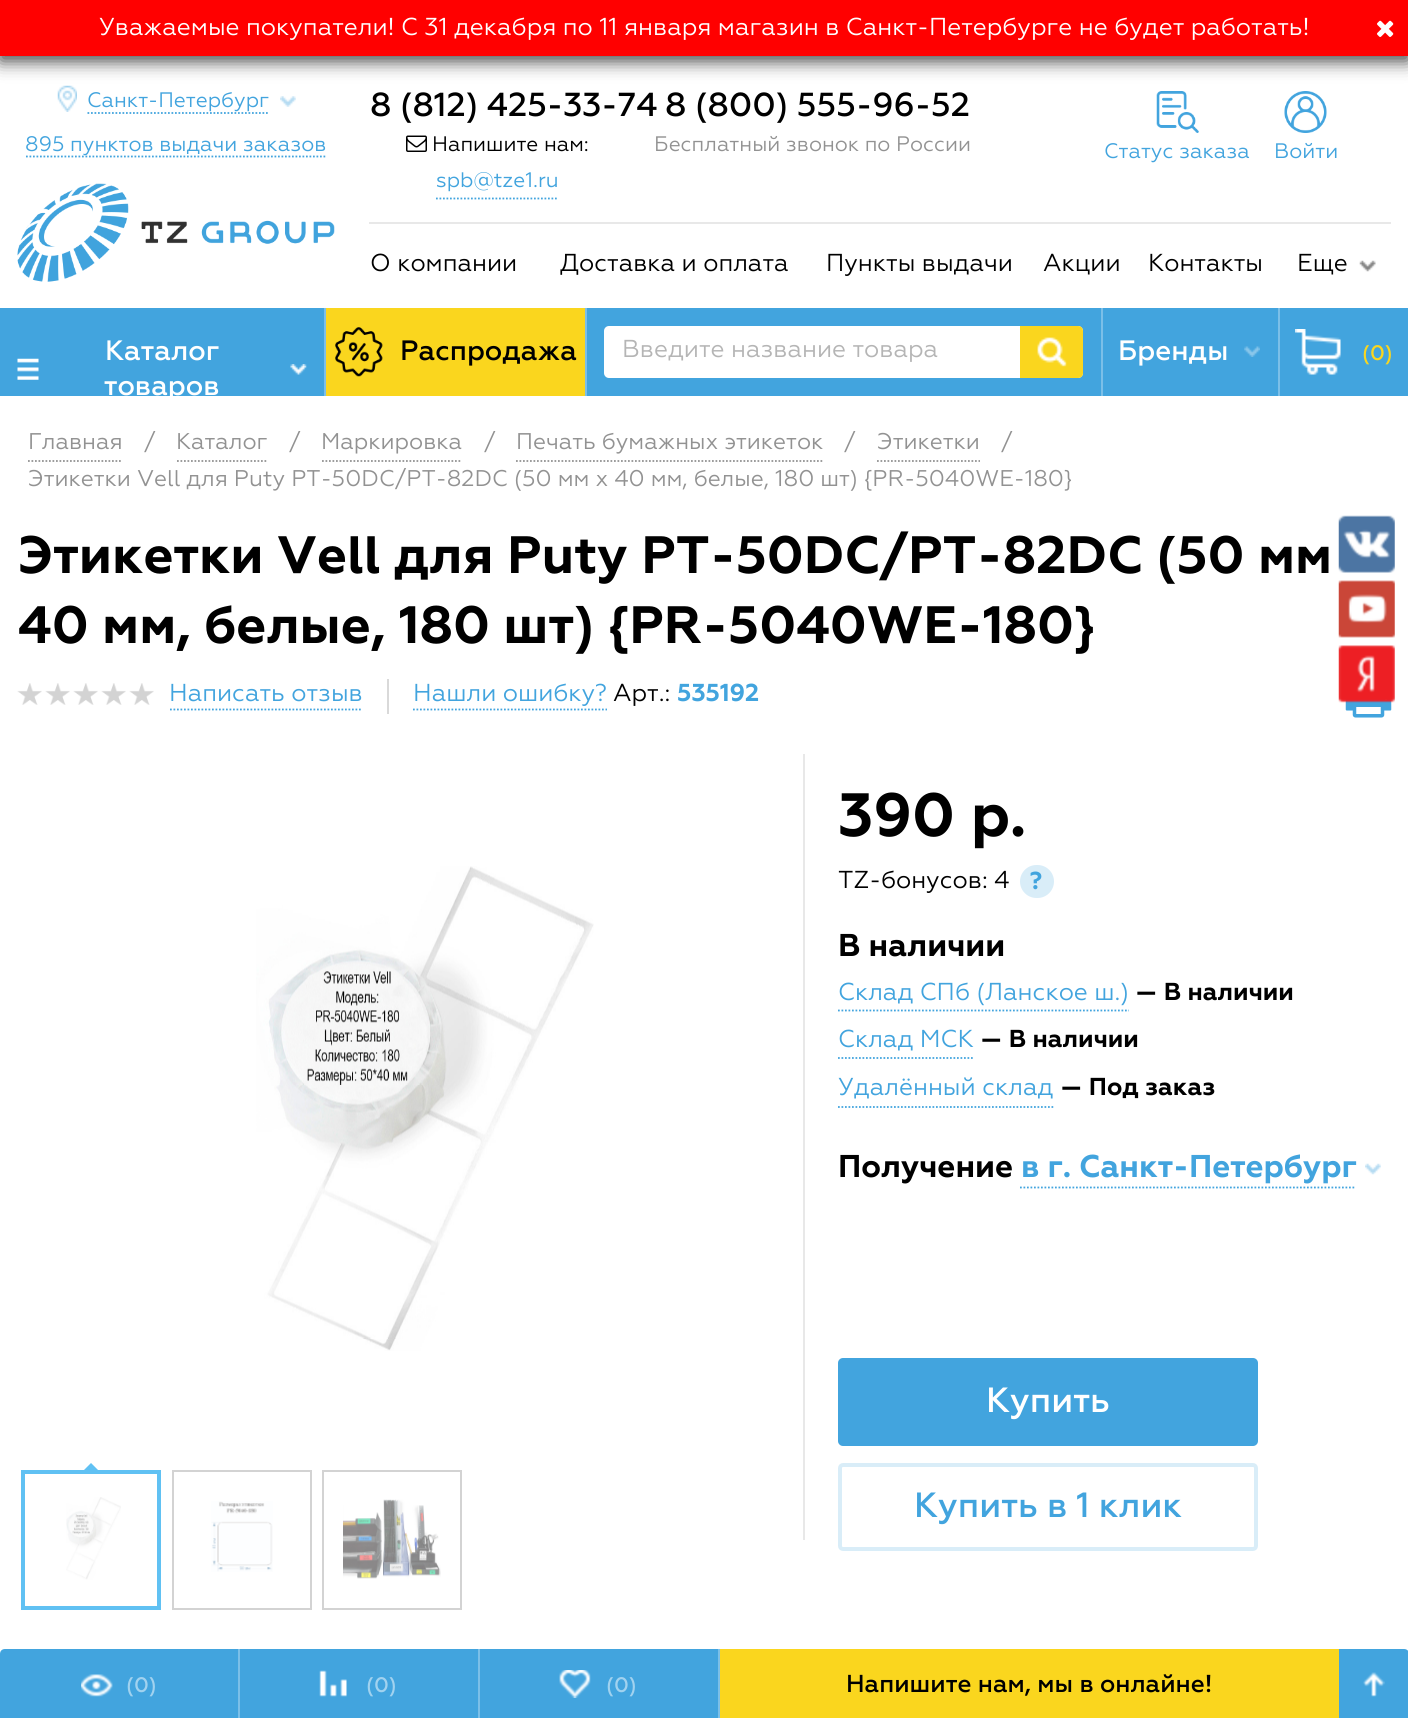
#include <cairo.h>
#include <math.h>
#include <stddef.h>

static cairo_t *ctx;

static void use_color(int r, int g, int b) {
    cairo_set_source_rgb(ctx, r / 255.0, g / 255.0, b / 255.0);
}

static void round_rect(double x, double y, double w, double h, double r) {
    cairo_new_sub_path(ctx);
    cairo_arc(ctx, x + w - r, y + h - r, r, 0, M_PI / 2);
    cairo_arc(ctx, x + r, y + h - r, r, M_PI / 2, M_PI);
    cairo_arc(ctx, x + r, y + r, r, M_PI, 1.5 * M_PI);
    cairo_arc(ctx, x + w - r, y + r, r, 1.5 * M_PI, 2 * M_PI);
    cairo_close_path(ctx);
}

static void shadow(double x, double y, double w, double h, double r, double blur, double alpha) {
    cairo_push_group_with_content(ctx, CAIRO_CONTENT_ALPHA);
    cairo_set_operator(ctx, CAIRO_OPERATOR_SOURCE);
    for (int i = 15; i >= -15 && fmin(w, h) + blur * i / 3 > 0; i -= 2) {
        double e = blur * i / 6;
        cairo_set_source_rgba(ctx, 0, 0, 0, alpha * erfc((i - 1) / 8.5) / 2);
        round_rect(x - e, y - e, w + 2 * e, h + 2 * e, fmax(0, fmin(r + e + blur * .6, fmin(w, h) / 2 + e)));
        cairo_fill(ctx);
    }
    cairo_pattern_t *soft = cairo_pop_group(ctx);
    cairo_mask(ctx, soft);
    cairo_pattern_destroy(soft);
}

static void picture(const char *path, double x, double y, double w, double h) {
    cairo_surface_t *image = cairo_image_surface_create_from_png(path);
    cairo_save(ctx);
    cairo_set_source_surface(ctx, image, x, y);
    cairo_rectangle(ctx, x, y, w, h);
    cairo_fill(ctx);
    cairo_restore(ctx);
    cairo_surface_destroy(image);
}

int main(void) {
    cairo_surface_t *surface = cairo_image_surface_create(CAIRO_FORMAT_RGB24, 1408, 1718);
    ctx = cairo_create(surface);
    cairo_font_options_t *options = cairo_font_options_create();
    cairo_font_options_set_hint_metrics(options, CAIRO_HINT_METRICS_OFF);
    cairo_font_options_set_hint_style(options, CAIRO_HINT_STYLE_NONE);
    cairo_set_font_options(ctx, options);
    cairo_set_miter_limit(ctx, 4);
    use_color(255, 255, 255);
    cairo_paint(ctx);
    picture("img2.png", 57, 85, 20, 27);
    use_color(0, 0, 0);
    shadow(0, 5, 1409, 56, 0, 9, 0.75);
    use_color(255, 0, 0);
    cairo_rectangle(ctx, 0, 0, 1408, 56);
    cairo_fill(ctx);
    cairo_select_font_face(ctx, "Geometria", CAIRO_FONT_SLANT_NORMAL, CAIRO_FONT_WEIGHT_NORMAL);
    cairo_set_font_size(ctx, 24.5);
    use_color(255, 255, 255);
    cairo_move_to(ctx, 99, 35);
    cairo_show_text(ctx, "Уважаемые покупатели! С 31 декабря по 11 января магазин в Санкт-Петербурге не будет работать!");
    picture("img1.png", 1377, 20, 17, 17);
    cairo_set_font_size(ctx, 21);
    use_color(66, 164, 222);
    cairo_move_to(ctx, 87, 107);
    cairo_show_text(ctx, "Санкт-Петербург");
    cairo_new_path(ctx);
    cairo_move_to(ctx, 87.5, 113);
    cairo_line_to(ctx, 269.5, 113);
    cairo_set_line_width(ctx, 1.8);
    cairo_set_dash(ctx, (double[]){1.75, 1.75}, 2, 0);
    cairo_stroke(ctx);
    picture("img3.png", 280, 96, 16, 11);
    cairo_new_path(ctx);
    cairo_move_to(ctx, 26, 156.5);
    cairo_line_to(ctx, 327, 156.5);
    cairo_stroke(ctx);
    cairo_move_to(ctx, 25, 151);
    cairo_show_text(ctx, "895 пунктов выдачи заказов");
    picture("img4.png", 17, 183, 318, 99);
    use_color(232, 232, 232);
    cairo_rectangle(ctx, 369, 222, 1022, 2);
    cairo_fill(ctx);
    cairo_select_font_face(ctx, "Geometria Medium", CAIRO_FONT_SLANT_NORMAL, CAIRO_FONT_WEIGHT_NORMAL);
    cairo_set_font_size(ctx, 33.25);
    use_color(0, 0, 0);
    cairo_move_to(ctx, 370, 116);
    cairo_show_text(ctx, "8 (812) 425-33-74");
    picture("img5.png", 406, 135, 21, 17);
    cairo_select_font_face(ctx, "Geometria", CAIRO_FONT_SLANT_NORMAL, CAIRO_FONT_WEIGHT_NORMAL);
    cairo_set_font_size(ctx, 21);
    cairo_move_to(ctx, 432, 151);
    cairo_show_text(ctx, "Напишите нам:");
    cairo_new_path(ctx);
    cairo_move_to(ctx, 436, 198.5);
    cairo_line_to(ctx, 558, 198.5);
    use_color(66, 164, 222);
    cairo_stroke(ctx);
    cairo_move_to(ctx, 436, 187);
    cairo_show_text(ctx, "spb@tze1.ru");
    cairo_select_font_face(ctx, "Geometria Medium", CAIRO_FONT_SLANT_NORMAL, CAIRO_FONT_WEIGHT_NORMAL);
    cairo_set_font_size(ctx, 33.25);
    use_color(0, 0, 0);
    cairo_move_to(ctx, 665, 116);
    cairo_show_text(ctx, "8 (800) 555-96-52");
    cairo_select_font_face(ctx, "Geometria", CAIRO_FONT_SLANT_NORMAL, CAIRO_FONT_WEIGHT_NORMAL);
    cairo_set_font_size(ctx, 21);
    use_color(146, 146, 146);
    cairo_move_to(ctx, 654, 151);
    cairo_show_text(ctx, "Бесплатный звонок по России");
    picture("img6.png", 1156, 91, 43, 42);
    use_color(66, 164, 222);
    cairo_move_to(ctx, 1104, 158);
    cairo_show_text(ctx, "Статус заказа");
    picture("img7.png", 1284, 91, 43, 42);
    cairo_move_to(ctx, 1274, 158);
    cairo_show_text(ctx, "Войти");
    cairo_set_font_size(ctx, 24.5);
    use_color(0, 0, 0);
    cairo_move_to(ctx, 370, 271);
    cairo_show_text(ctx, "О компании");
    cairo_move_to(ctx, 560, 271);
    cairo_show_text(ctx, "Доставка и оплата");
    cairo_move_to(ctx, 826, 271);
    cairo_show_text(ctx, "Пункты выдачи");
    cairo_move_to(ctx, 1043, 271);
    cairo_show_text(ctx, "Акции");
    cairo_move_to(ctx, 1148, 271);
    cairo_show_text(ctx, "Контакты");
    cairo_move_to(ctx, 1297, 271);
    cairo_show_text(ctx, "Еще");
    picture("img8.png", 1359, 260, 17, 12);
    use_color(66, 164, 222);
    cairo_rectangle(ctx, 0, 308, 324, 88);
    cairo_fill(ctx);
    cairo_select_font_face(ctx, "Geometria Medium", CAIRO_FONT_SLANT_NORMAL, CAIRO_FONT_WEIGHT_NORMAL);
    cairo_set_font_size(ctx, 28);
    use_color(255, 255, 255);
    cairo_move_to(ctx, 105, 360);
    cairo_show_text(ctx, "Каталог");
    picture("img9.png", 17, 358, 22, 22);
    picture("img10.png", 290, 364, 17, 11);
    cairo_move_to(ctx, 104, 395);
    cairo_show_text(ctx, "товаров");
    use_color(123, 191, 232);
    cairo_rectangle(ctx, 324, 308, 2, 88);
    cairo_fill(ctx);
    use_color(250, 214, 30);
    cairo_rectangle(ctx, 326, 308, 259, 88);
    cairo_fill(ctx);
    picture("img11.png", 335, 327, 48, 50);
    use_color(0, 0, 0);
    cairo_move_to(ctx, 400, 360);
    cairo_show_text(ctx, "Распродажа");
    use_color(66, 164, 222);
    cairo_rectangle(ctx, 587, 308, 514, 88);
    cairo_fill(ctx);
    use_color(123, 191, 232);
    cairo_rectangle(ctx, 585, 308, 2, 88);
    cairo_fill(ctx);
    use_color(255, 255, 255);
    round_rect(604, 326, 479, 52, 5);
    cairo_fill(ctx);
    cairo_select_font_face(ctx, "Geometria", CAIRO_FONT_SLANT_NORMAL, CAIRO_FONT_WEIGHT_NORMAL);
    cairo_set_font_size(ctx, 24.5);
    use_color(181, 181, 181);
    cairo_move_to(ctx, 622, 357);
    cairo_show_text(ctx, "Введите название товара");
    use_color(250, 214, 30);
    cairo_new_path(ctx);
    cairo_move_to(ctx, 1020, 326);
    cairo_line_to(ctx, 1078, 326);
    cairo_curve_to(ctx, 1081, 326, 1083, 328, 1083, 331);
    cairo_line_to(ctx, 1083, 373);
    cairo_curve_to(ctx, 1083, 376, 1081, 378, 1078, 378);
    cairo_line_to(ctx, 1020, 378);
    cairo_close_path(ctx);
    cairo_fill(ctx);
    picture("img12.png", 1037, 337, 30, 30);
    use_color(66, 164, 222);
    cairo_rectangle(ctx, 1103, 308, 175, 88);
    cairo_fill(ctx);
    use_color(123, 191, 232);
    cairo_rectangle(ctx, 1101, 308, 2, 88);
    cairo_fill(ctx);
    cairo_select_font_face(ctx, "Geometria Medium", CAIRO_FONT_SLANT_NORMAL, CAIRO_FONT_WEIGHT_NORMAL);
    cairo_set_font_size(ctx, 28);
    use_color(255, 255, 255);
    cairo_move_to(ctx, 1118, 360);
    cairo_show_text(ctx, "Бренды");
    picture("img13.png", 1244, 346, 16, 11);
    use_color(66, 164, 222);
    cairo_rectangle(ctx, 1280, 308, 128, 88);
    cairo_fill(ctx);
    use_color(123, 191, 232);
    cairo_rectangle(ctx, 1278, 308, 2, 88);
    cairo_fill(ctx);
    picture("img14.png", 1295, 329, 46, 46);
    cairo_set_font_size(ctx, 21);
    use_color(250, 214, 30);
    cairo_move_to(ctx, 1362, 360);
    cairo_show_text(ctx, "(0)");
    cairo_new_path(ctx);
    cairo_move_to(ctx, 28, 461);
    cairo_line_to(ctx, 122.5, 461);
    use_color(146, 146, 146);
    cairo_stroke(ctx);
    cairo_select_font_face(ctx, "Geometria", CAIRO_FONT_SLANT_NORMAL, CAIRO_FONT_WEIGHT_NORMAL);
    cairo_set_font_size(ctx, 22.75);
    cairo_move_to(ctx, 28, 449);
    cairo_show_text(ctx, "Главная");
    cairo_move_to(ctx, 144, 449);
    cairo_show_text(ctx, "/");
    cairo_new_path(ctx);
    cairo_move_to(ctx, 177, 461);
    cairo_line_to(ctx, 268, 461);
    cairo_stroke(ctx);
    cairo_move_to(ctx, 176, 449);
    cairo_show_text(ctx, "Каталог");
    cairo_move_to(ctx, 289, 449);
    cairo_show_text(ctx, "/");
    cairo_new_path(ctx);
    cairo_move_to(ctx, 322, 461);
    cairo_line_to(ctx, 462, 461);
    cairo_stroke(ctx);
    cairo_move_to(ctx, 321, 449);
    cairo_show_text(ctx, "Маркировка");
    cairo_move_to(ctx, 484, 449);
    cairo_show_text(ctx, "/");
    cairo_new_path(ctx);
    cairo_move_to(ctx, 516, 461);
    cairo_line_to(ctx, 824, 461);
    cairo_stroke(ctx);
    cairo_move_to(ctx, 516, 449);
    cairo_show_text(ctx, "Печать бумажных этикеток");
    cairo_move_to(ctx, 844, 449);
    cairo_show_text(ctx, "/");
    cairo_new_path(ctx);
    cairo_move_to(ctx, 877, 461);
    cairo_line_to(ctx, 980, 461);
    cairo_stroke(ctx);
    cairo_move_to(ctx, 877, 449);
    cairo_show_text(ctx, "Этикетки");
    cairo_move_to(ctx, 1001, 449);
    cairo_show_text(ctx, "/");
    cairo_move_to(ctx, 28, 486);
    cairo_show_text(ctx, "Этикетки Vell для Puty PT-50DC/PT-82DC (50 мм х 40 мм, белые, 180 шт) {PR-5040WE-180}");
    cairo_select_font_face(ctx, "Geometria", CAIRO_FONT_SLANT_NORMAL, CAIRO_FONT_WEIGHT_BOLD);
    cairo_set_font_size(ctx, 52.5);
    use_color(0, 0, 0);
    cairo_move_to(ctx, 18, 573);
    cairo_show_text(ctx, "Этикетки Vell для Puty PT-50DC/PT-82DC (50 мм");
    cairo_move_to(ctx, 18, 643);
    cairo_show_text(ctx, "40 мм, белые, 180 шт) {PR-5040WE-180}");
    use_color(217, 217, 217);
    cairo_rectangle(ctx, 387, 679, 2, 35);
    cairo_fill(ctx);
    picture("img15.png", 17, 683, 25, 22);
    picture("img16.png", 45, 683, 25, 22);
    picture("img15.png", 73, 683, 25, 22);
    picture("img17.png", 101, 683, 25, 22);
    picture("img15.png", 129, 683, 25, 22);
    cairo_select_font_face(ctx, "Geometria", CAIRO_FONT_SLANT_NORMAL, CAIRO_FONT_WEIGHT_NORMAL);
    cairo_set_font_size(ctx, 24.5);
    use_color(66, 164, 222);
    cairo_move_to(ctx, 169, 701);
    cairo_show_text(ctx, "Написать отзыв");
    cairo_new_path(ctx);
    cairo_move_to(ctx, 170, 709.5);
    cairo_line_to(ctx, 362, 709.5);
    cairo_stroke(ctx);
    cairo_move_to(ctx, 413, 701);
    cairo_show_text(ctx, "Нашли ошибку?");
    cairo_new_path(ctx);
    cairo_move_to(ctx, 413, 709.5);
    cairo_line_to(ctx, 607, 709.5);
    cairo_stroke(ctx);
    use_color(0, 0, 0);
    cairo_move_to(ctx, 613, 701);
    cairo_show_text(ctx, "Арт.:");
    cairo_select_font_face(ctx, "Geometria", CAIRO_FONT_SLANT_NORMAL, CAIRO_FONT_WEIGHT_BOLD);
    use_color(66, 164, 222);
    cairo_move_to(ctx, 677, 701);
    cairo_show_text(ctx, "535192");
    picture("img18.png", 1345, 699, 47, 19);
    picture("img19.png", 256, 866, 338, 485);
    use_color(96, 193, 243);
    cairo_new_path(ctx);
    cairo_move_to(ctx, 98, 1470);
    cairo_line_to(ctx, 84, 1470);
    cairo_line_to(ctx, 91, 1463);
    cairo_close_path(ctx);
    cairo_fill(ctx);
    picture("img20.png", 66, 1497, 55, 83);
    cairo_rectangle(ctx, 23, 1472, 136, 136);
    cairo_set_line_width(ctx, 4);
    cairo_set_dash(ctx, NULL, 0, 0);
    cairo_stroke(ctx);
    picture("img21.png", 211, 1501, 62, 71);
    cairo_rectangle(ctx, 173, 1471, 138, 138);
    use_color(211, 211, 211);
    cairo_set_line_width(ctx, 2);
    cairo_stroke(ctx);
    picture("img22.png", 343, 1499, 98, 80);
    cairo_rectangle(ctx, 323, 1471, 138, 138);
    cairo_stroke(ctx);
    use_color(232, 232, 232);
    cairo_rectangle(ctx, 803, 754, 2, 786);
    cairo_fill(ctx);
    cairo_set_font_size(ctx, 61);
    use_color(0, 0, 0);
    cairo_move_to(ctx, 838, 836);
    cairo_show_text(ctx, "390 р.");
    cairo_select_font_face(ctx, "Geometria", CAIRO_FONT_SLANT_NORMAL, CAIRO_FONT_WEIGHT_NORMAL);
    cairo_set_font_size(ctx, 24.5);
    cairo_move_to(ctx, 838, 888);
    cairo_show_text(ctx, "TZ-бонусов: 4");
    use_color(217, 237, 248);
    round_rect(1020, 865, 34, 33, 16.5);
    cairo_fill(ctx);
    cairo_select_font_face(ctx, "Geometria", CAIRO_FONT_SLANT_NORMAL, CAIRO_FONT_WEIGHT_BOLD);
    use_color(66, 164, 222);
    cairo_move_to(ctx, 1030, 889);
    cairo_show_text(ctx, "?");
    cairo_set_font_size(ctx, 31.5);
    use_color(0, 0, 0);
    cairo_move_to(ctx, 838, 956);
    cairo_show_text(ctx, "В наличии");
    cairo_new_path(ctx);
    cairo_move_to(ctx, 838, 1010.5);
    cairo_line_to(ctx, 1129, 1010.5);
    use_color(66, 164, 222);
    cairo_set_line_width(ctx, 1.8);
    cairo_set_dash(ctx, (double[]){1.75, 1.75}, 2, 0);
    cairo_stroke(ctx);
    cairo_select_font_face(ctx, "Geometria", CAIRO_FONT_SLANT_NORMAL, CAIRO_FONT_WEIGHT_NORMAL);
    cairo_set_font_size(ctx, 24.5);
    cairo_move_to(ctx, 838, 1000);
    cairo_show_text(ctx, "Склад СПб (Ланское ш.)");
    cairo_select_font_face(ctx, "Geometria", CAIRO_FONT_SLANT_NORMAL, CAIRO_FONT_WEIGHT_BOLD);
    use_color(0, 0, 0);
    cairo_move_to(ctx, 1135, 1000);
    cairo_show_text(ctx, "— В наличии");
    cairo_new_path(ctx);
    cairo_move_to(ctx, 838, 1058);
    cairo_line_to(ctx, 973, 1058);
    use_color(66, 164, 222);
    cairo_stroke(ctx);
    cairo_select_font_face(ctx, "Geometria", CAIRO_FONT_SLANT_NORMAL, CAIRO_FONT_WEIGHT_NORMAL);
    cairo_move_to(ctx, 838, 1047);
    cairo_show_text(ctx, "Склад МСК");
    cairo_select_font_face(ctx, "Geometria", CAIRO_FONT_SLANT_NORMAL, CAIRO_FONT_WEIGHT_BOLD);
    use_color(0, 0, 0);
    cairo_move_to(ctx, 980, 1047);
    cairo_show_text(ctx, "— В наличии");
    cairo_new_path(ctx);
    cairo_move_to(ctx, 838, 1107);
    cairo_line_to(ctx, 1053.5, 1107);
    use_color(66, 164, 222);
    cairo_stroke(ctx);
    cairo_select_font_face(ctx, "Geometria", CAIRO_FONT_SLANT_NORMAL, CAIRO_FONT_WEIGHT_NORMAL);
    cairo_move_to(ctx, 838, 1095);
    cairo_show_text(ctx, "Удалённый склад");
    cairo_select_font_face(ctx, "Geometria", CAIRO_FONT_SLANT_NORMAL, CAIRO_FONT_WEIGHT_BOLD);
    use_color(0, 0, 0);
    cairo_move_to(ctx, 1060, 1095);
    cairo_show_text(ctx, "— Под заказ");
    cairo_set_font_size(ctx, 31.5);
    cairo_move_to(ctx, 838, 1177);
    cairo_show_text(ctx, "Получение");
    use_color(66, 164, 222);
    cairo_move_to(ctx, 1021, 1177);
    cairo_show_text(ctx, "в г. Санкт-Петербург");
    cairo_new_path(ctx);
    cairo_move_to(ctx, 1020, 1187.5);
    cairo_line_to(ctx, 1356, 1187.5);
    cairo_stroke(ctx);
    picture("img23.png", 1365, 1163, 16, 12);
    round_rect(838, 1358, 420, 88, 5);
    cairo_fill(ctx);
    cairo_select_font_face(ctx, "Geometria Medium", CAIRO_FONT_SLANT_NORMAL, CAIRO_FONT_WEIGHT_NORMAL);
    cairo_set_font_size(ctx, 35);
    use_color(255, 255, 255);
    cairo_move_to(ctx, 986, 1412);
    cairo_show_text(ctx, "Купить");
    round_rect(840, 1465, 416, 84, 3);
    use_color(217, 237, 248);
    cairo_set_line_width(ctx, 4);
    cairo_set_dash(ctx, NULL, 0, 0);
    cairo_stroke(ctx);
    use_color(66, 164, 222);
    cairo_move_to(ctx, 914, 1517);
    cairo_show_text(ctx, "Купить в 1 клик");
    picture("img24.png", 1338, 515, 57, 58);
    picture("img25.png", 1338, 580, 57, 58);
    picture("img26.png", 1338, 645, 57, 58);
    cairo_new_path(ctx);
    cairo_move_to(ctx, 5, 1649);
    cairo_line_to(ctx, 238, 1649);
    cairo_line_to(ctx, 238, 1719);
    cairo_line_to(ctx, 0, 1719);
    cairo_line_to(ctx, 0, 1654);
    cairo_curve_to(ctx, 0, 1651, 2, 1649, 5, 1649);
    cairo_close_path(ctx);
    cairo_fill(ctx);
    picture("img27.png", 81, 1674, 32, 23);
    cairo_set_font_size(ctx, 21);
    use_color(161, 210, 239);
    cairo_move_to(ctx, 126, 1692);
    cairo_show_text(ctx, "(0)");
    use_color(123, 191, 232);
    cairo_rectangle(ctx, 238, 1649, 2, 69);
    cairo_fill(ctx);
    use_color(66, 164, 222);
    cairo_rectangle(ctx, 240, 1649, 238, 69);
    cairo_fill(ctx);
    picture("img28.png", 319, 1670, 28, 27);
    use_color(161, 210, 239);
    cairo_move_to(ctx, 366, 1692);
    cairo_show_text(ctx, "(0)");
    use_color(123, 191, 232);
    cairo_rectangle(ctx, 478, 1649, 2, 69);
    cairo_fill(ctx);
    use_color(66, 164, 222);
    cairo_rectangle(ctx, 480, 1649, 238, 69);
    cairo_fill(ctx);
    picture("img29.png", 559, 1670, 32, 28);
    use_color(161, 210, 239);
    cairo_move_to(ctx, 606, 1692);
    cairo_show_text(ctx, "(0)");
    use_color(123, 191, 232);
    cairo_rectangle(ctx, 718, 1649, 2, 69);
    cairo_fill(ctx);
    use_color(250, 214, 30);
    cairo_rectangle(ctx, 720, 1649, 619, 69);
    cairo_fill(ctx);
    cairo_set_font_size(ctx, 24.5);
    use_color(0, 0, 0);
    cairo_move_to(ctx, 846, 1692);
    cairo_show_text(ctx, "Напишите нам, мы в онлайне!");
    use_color(66, 164, 222);
    cairo_new_path(ctx);
    cairo_move_to(ctx, 1339, 1649);
    cairo_line_to(ctx, 1404, 1649);
    cairo_curve_to(ctx, 1407, 1649, 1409, 1651, 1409, 1654);
    cairo_line_to(ctx, 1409, 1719);
    cairo_line_to(ctx, 1339, 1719);
    cairo_close_path(ctx);
    cairo_fill(ctx);
    picture("img30.png", 1363, 1672, 22, 25);
    cairo_surface_write_to_png(surface, "result.png");
    cairo_font_options_destroy(options);
    cairo_destroy(ctx);
    cairo_surface_destroy(surface);
    return 0;
}
